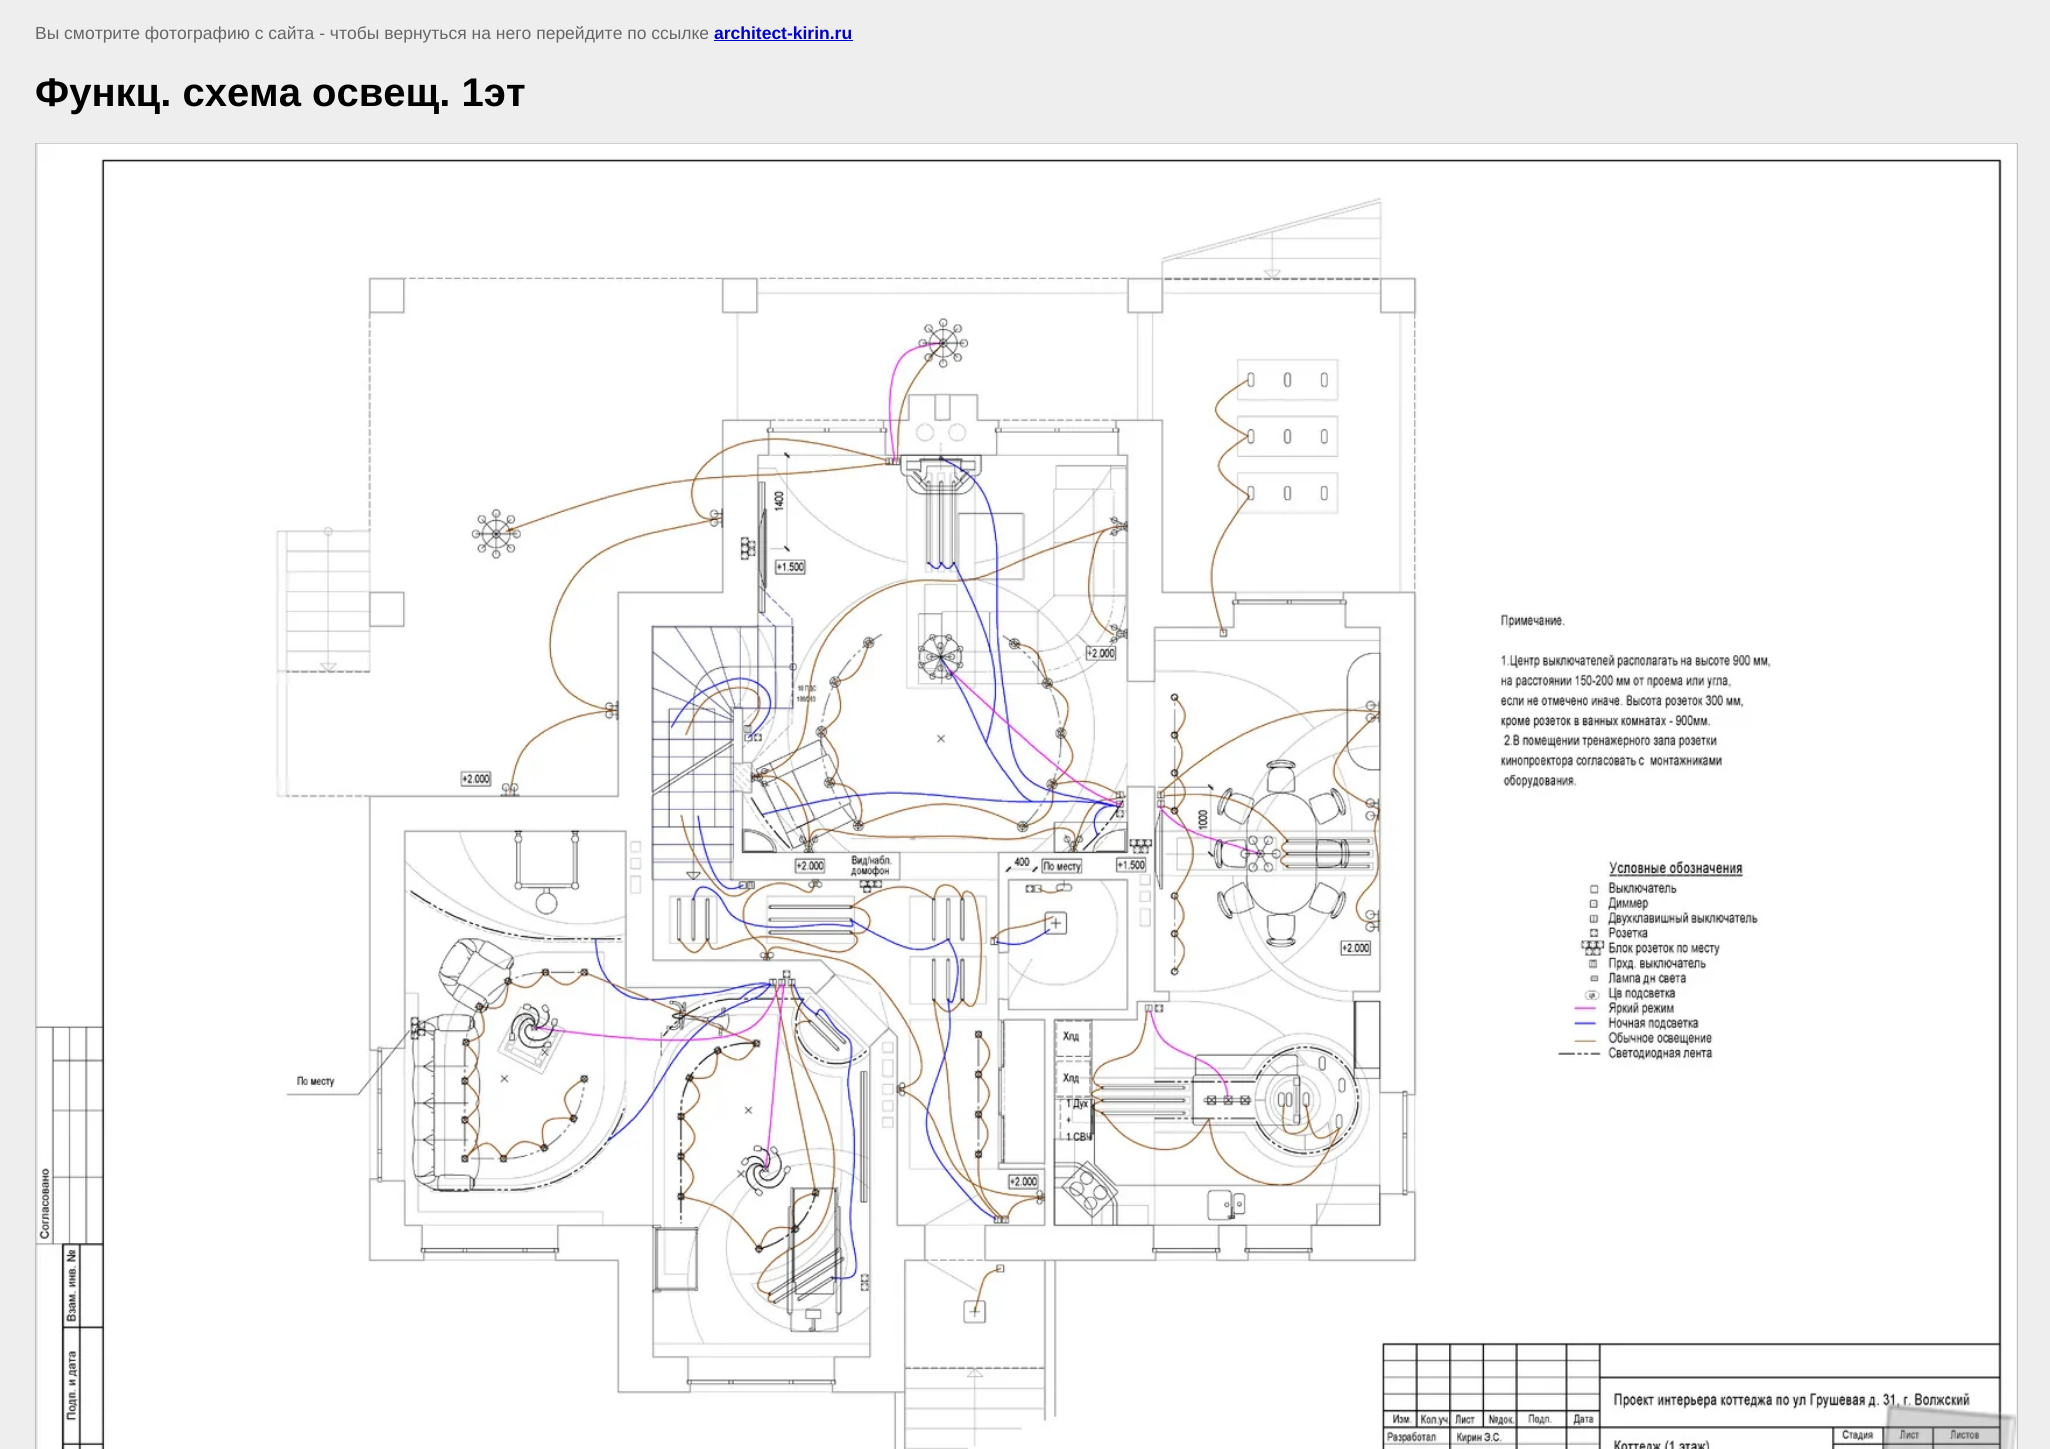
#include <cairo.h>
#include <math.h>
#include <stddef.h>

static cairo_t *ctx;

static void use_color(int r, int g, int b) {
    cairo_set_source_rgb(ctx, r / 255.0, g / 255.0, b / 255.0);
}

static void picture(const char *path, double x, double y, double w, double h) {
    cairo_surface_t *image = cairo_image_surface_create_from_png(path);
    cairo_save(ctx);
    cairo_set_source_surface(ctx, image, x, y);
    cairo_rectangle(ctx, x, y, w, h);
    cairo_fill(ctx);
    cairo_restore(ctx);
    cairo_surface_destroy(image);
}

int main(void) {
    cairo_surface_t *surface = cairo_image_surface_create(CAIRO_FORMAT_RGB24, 2050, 1449);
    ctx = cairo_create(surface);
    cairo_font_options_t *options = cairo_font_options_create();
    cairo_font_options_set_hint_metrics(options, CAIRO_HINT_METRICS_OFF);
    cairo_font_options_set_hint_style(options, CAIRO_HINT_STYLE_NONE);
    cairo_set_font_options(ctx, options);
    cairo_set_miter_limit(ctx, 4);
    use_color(238, 238, 238);
    cairo_paint(ctx);
    cairo_select_font_face(ctx, "Liberation Sans", CAIRO_FONT_SLANT_NORMAL, CAIRO_FONT_WEIGHT_NORMAL);
    cairo_set_font_size(ctx, 17.5);
    use_color(102, 102, 102);
    cairo_move_to(ctx, 35, 39);
    cairo_show_text(ctx, "Вы смотрите фотографию с сайта - чтобы вернуться на него перейдите по ссылке");
    cairo_select_font_face(ctx, "Liberation Sans", CAIRO_FONT_SLANT_NORMAL, CAIRO_FONT_WEIGHT_BOLD);
    use_color(0, 0, 204);
    cairo_move_to(ctx, 714, 39);
    cairo_show_text(ctx, "architect-kirin.ru");
    cairo_rectangle(ctx, 714, 40, 139, 1);
    cairo_fill(ctx);
    cairo_set_font_size(ctx, 40);
    use_color(0, 0, 0);
    cairo_move_to(ctx, 35, 106);
    cairo_show_text(ctx, "Функц. схема освещ. 1эт");
    cairo_rectangle(ctx, 35.5, 143.5, 1982, 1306);
    use_color(192, 192, 192);
    cairo_set_line_width(ctx, 1);
    cairo_stroke(ctx);
    picture("img1.png", 36, 143, 1981, 1306);
    cairo_surface_write_to_png(surface, "result.png");
    cairo_font_options_destroy(options);
    cairo_destroy(ctx);
    cairo_surface_destroy(surface);
    return 0;
}
